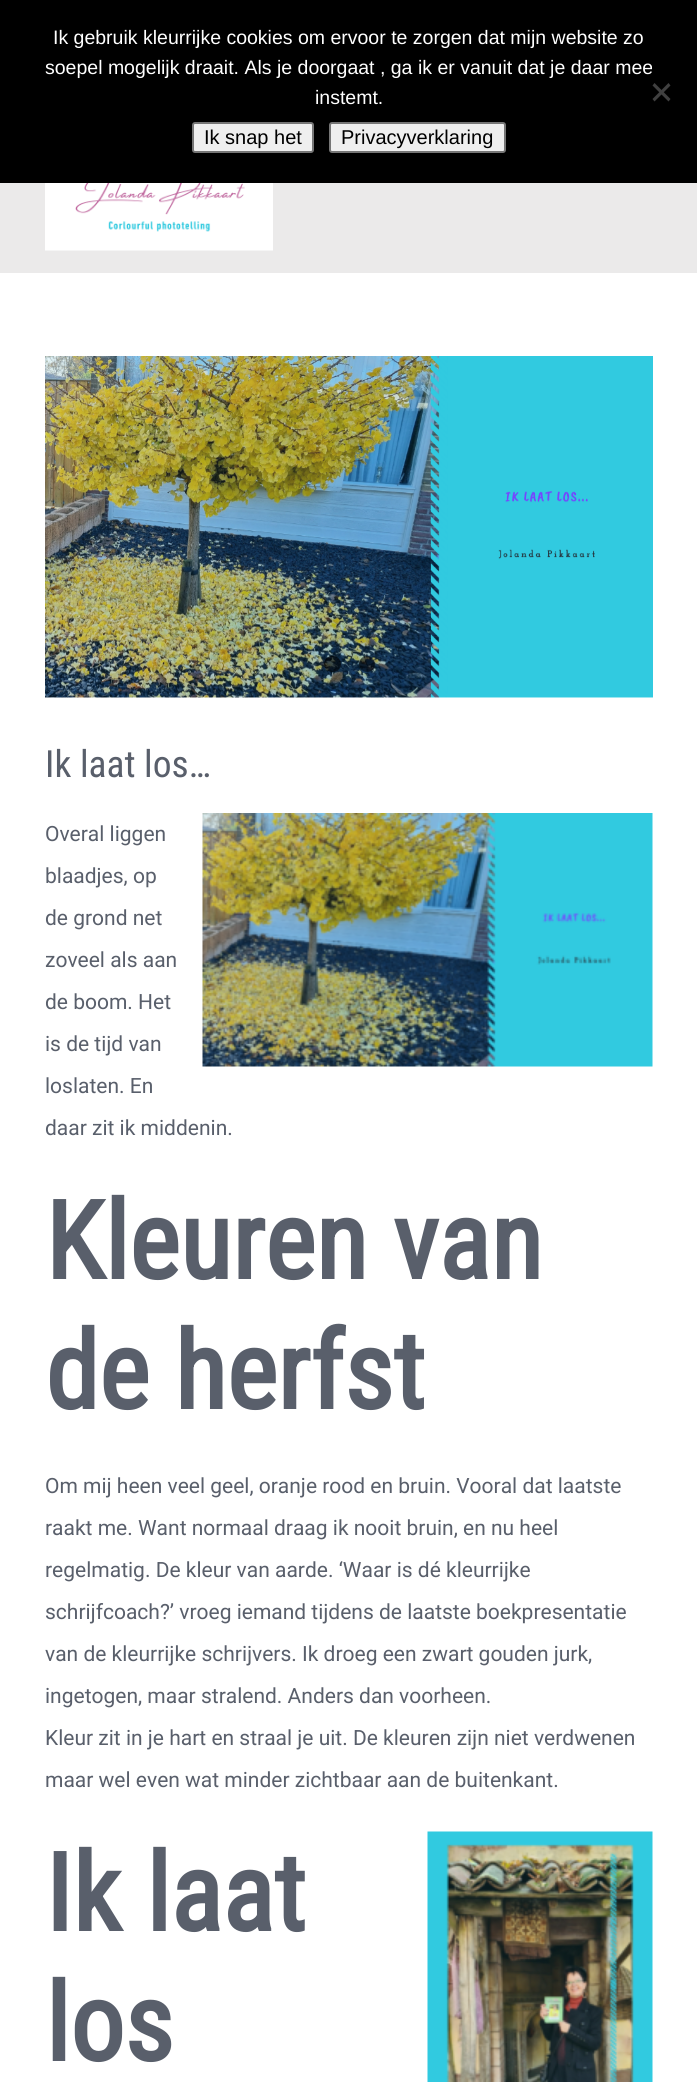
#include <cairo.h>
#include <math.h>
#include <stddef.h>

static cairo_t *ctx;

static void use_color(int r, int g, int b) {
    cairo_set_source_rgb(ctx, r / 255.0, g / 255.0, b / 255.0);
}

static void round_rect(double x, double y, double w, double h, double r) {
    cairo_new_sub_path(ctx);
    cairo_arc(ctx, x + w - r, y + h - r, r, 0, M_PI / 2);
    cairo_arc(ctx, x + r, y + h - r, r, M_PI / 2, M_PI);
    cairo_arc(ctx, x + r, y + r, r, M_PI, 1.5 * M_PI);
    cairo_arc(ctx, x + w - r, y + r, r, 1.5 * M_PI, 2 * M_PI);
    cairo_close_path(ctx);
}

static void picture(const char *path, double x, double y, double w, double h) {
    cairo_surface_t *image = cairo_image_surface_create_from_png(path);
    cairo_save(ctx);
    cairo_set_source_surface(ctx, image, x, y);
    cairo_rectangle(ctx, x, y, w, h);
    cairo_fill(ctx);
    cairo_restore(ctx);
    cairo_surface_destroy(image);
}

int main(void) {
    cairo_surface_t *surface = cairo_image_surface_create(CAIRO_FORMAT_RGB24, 697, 2082);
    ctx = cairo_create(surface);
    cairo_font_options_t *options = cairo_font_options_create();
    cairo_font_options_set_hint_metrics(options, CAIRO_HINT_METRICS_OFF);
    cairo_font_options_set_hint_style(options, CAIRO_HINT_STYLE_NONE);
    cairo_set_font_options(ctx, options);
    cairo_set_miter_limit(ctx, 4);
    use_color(255, 255, 255);
    cairo_paint(ctx);
    use_color(0, 0, 0);
    cairo_rectangle(ctx, 0, 0, 697, 183);
    cairo_fill(ctx);
    cairo_select_font_face(ctx, "Liberation Sans", CAIRO_FONT_SLANT_NORMAL, CAIRO_FONT_WEIGHT_NORMAL);
    cairo_set_font_size(ctx, 19.5);
    use_color(255, 255, 255);
    cairo_move_to(ctx, 53, 44);
    cairo_show_text(ctx, "Ik gebruik kleurrijke cookies om ervoor te zorgen dat mijn website zo");
    cairo_move_to(ctx, 45, 74);
    cairo_show_text(ctx, "soepel mogelijk draait. Als je doorgaat , ga ik er vanuit dat je daar mee");
    cairo_move_to(ctx, 315, 104);
    cairo_show_text(ctx, "instemt.");
    use_color(64, 64, 64);
    cairo_new_path(ctx);
    cairo_move_to(ctx, 668.5, 83);
    cairo_line_to(ctx, 670.5, 85.5);
    cairo_line_to(ctx, 654.5, 101.5);
    cairo_line_to(ctx, 652.5, 99);
    cairo_close_path(ctx);
    cairo_fill(ctx);
    cairo_new_path(ctx);
    cairo_move_to(ctx, 652.5, 85.5);
    cairo_line_to(ctx, 654.5, 83);
    cairo_line_to(ctx, 670.5, 99);
    cairo_line_to(ctx, 668.5, 101.5);
    cairo_close_path(ctx);
    cairo_fill(ctx);
    use_color(239, 239, 239);
    round_rect(193, 123, 120, 29, 2);
    cairo_fill_preserve(ctx);
    use_color(118, 118, 118);
    cairo_stroke(ctx);
    cairo_set_font_size(ctx, 20);
    use_color(0, 0, 0);
    cairo_move_to(ctx, 204, 144);
    cairo_show_text(ctx, "Ik snap het");
    use_color(239, 239, 239);
    round_rect(330, 123, 175, 29, 2);
    cairo_fill_preserve(ctx);
    use_color(118, 118, 118);
    cairo_stroke(ctx);
    use_color(0, 0, 0);
    cairo_move_to(ctx, 341, 144);
    cairo_show_text(ctx, "Privacyverklaring");
    use_color(235, 234, 234);
    cairo_rectangle(ctx, 0, 183, 697, 90);
    cairo_fill(ctx);
    picture("img1.png", 45, 183, 228, 68);
    picture("img2.png", 45, 356, 608, 342);
    cairo_set_source_rgba(ctx, 0, 0, 0, 0.6);
    round_rect(324, 656, 17, 16, 8);
    cairo_fill(ctx);
    cairo_set_source_rgba(ctx, 0, 0, 0, 0.5);
    cairo_arc(ctx, 367, 664, 8, 0, 2 * M_PI);
    cairo_fill(ctx);
    cairo_select_font_face(ctx, "Roboto Condensed", CAIRO_FONT_SLANT_NORMAL, CAIRO_FONT_WEIGHT_NORMAL);
    cairo_set_font_size(ctx, 37.5);
    use_color(89, 95, 107);
    cairo_move_to(ctx, 45, 777);
    cairo_show_text(ctx, "Ik laat los…");
    cairo_select_font_face(ctx, "Roboto", CAIRO_FONT_SLANT_NORMAL, CAIRO_FONT_WEIGHT_NORMAL);
    cairo_set_font_size(ctx, 21);
    cairo_move_to(ctx, 45, 841);
    cairo_show_text(ctx, "Overal liggen");
    picture("img3.png", 202, 813, 451, 254);
    cairo_move_to(ctx, 45, 883);
    cairo_show_text(ctx, "blaadjes, op");
    cairo_move_to(ctx, 45, 925);
    cairo_show_text(ctx, "de grond net");
    cairo_move_to(ctx, 45, 967);
    cairo_show_text(ctx, "zoveel als aan");
    cairo_move_to(ctx, 45, 1009);
    cairo_show_text(ctx, "de boom. Het");
    cairo_move_to(ctx, 45, 1051);
    cairo_show_text(ctx, "is de tĳd van");
    cairo_move_to(ctx, 45, 1093);
    cairo_show_text(ctx, "loslaten. En");
    cairo_move_to(ctx, 45, 1135);
    cairo_show_text(ctx, "daar zit ik middenin.");
    cairo_select_font_face(ctx, "Roboto Condensed", CAIRO_FONT_SLANT_NORMAL, CAIRO_FONT_WEIGHT_BOLD);
    cairo_set_font_size(ctx, 108);
    cairo_move_to(ctx, 45, 1279);
    cairo_show_text(ctx, "Kleuren van");
    cairo_move_to(ctx, 45, 1409);
    cairo_show_text(ctx, "de herfst");
    cairo_select_font_face(ctx, "Roboto", CAIRO_FONT_SLANT_NORMAL, CAIRO_FONT_WEIGHT_NORMAL);
    cairo_set_font_size(ctx, 21);
    cairo_move_to(ctx, 45, 1493);
    cairo_show_text(ctx, "Om mĳ heen veel geel, oranje rood en bruin. Vooral dat laatste");
    cairo_move_to(ctx, 45, 1535);
    cairo_show_text(ctx, "raakt me. Want normaal draag ik nooit bruin, en nu heel");
    cairo_move_to(ctx, 45, 1577);
    cairo_show_text(ctx, "regelmatig. De kleur van aarde. ‘Waar is dé kleurrĳke");
    cairo_move_to(ctx, 45, 1619);
    cairo_show_text(ctx, "schrĳfcoach?’ vroeg iemand tĳdens de laatste boekpresentatie");
    cairo_move_to(ctx, 45, 1661);
    cairo_show_text(ctx, "van de kleurrĳke schrĳvers. Ik droeg een zwart gouden jurk,");
    cairo_move_to(ctx, 45, 1703);
    cairo_show_text(ctx, "ingetogen, maar stralend. Anders dan voorheen.");
    cairo_move_to(ctx, 45, 1745);
    cairo_show_text(ctx, "Kleur zit in je hart en straal je uit. De kleuren zĳn niet verdwenen");
    cairo_move_to(ctx, 45, 1787);
    cairo_show_text(ctx, "maar wel even wat minder zichtbaar aan de buitenkant.");
    cairo_select_font_face(ctx, "Roboto Condensed", CAIRO_FONT_SLANT_NORMAL, CAIRO_FONT_WEIGHT_BOLD);
    cairo_set_font_size(ctx, 108);
    cairo_move_to(ctx, 45, 1931);
    cairo_show_text(ctx, "Ik laat");
    cairo_move_to(ctx, 45, 2061);
    cairo_show_text(ctx, "los");
    picture("img4.png", 427, 1831, 226, 251);
    cairo_surface_write_to_png(surface, "result.png");
    cairo_font_options_destroy(options);
    cairo_destroy(ctx);
    cairo_surface_destroy(surface);
    return 0;
}
